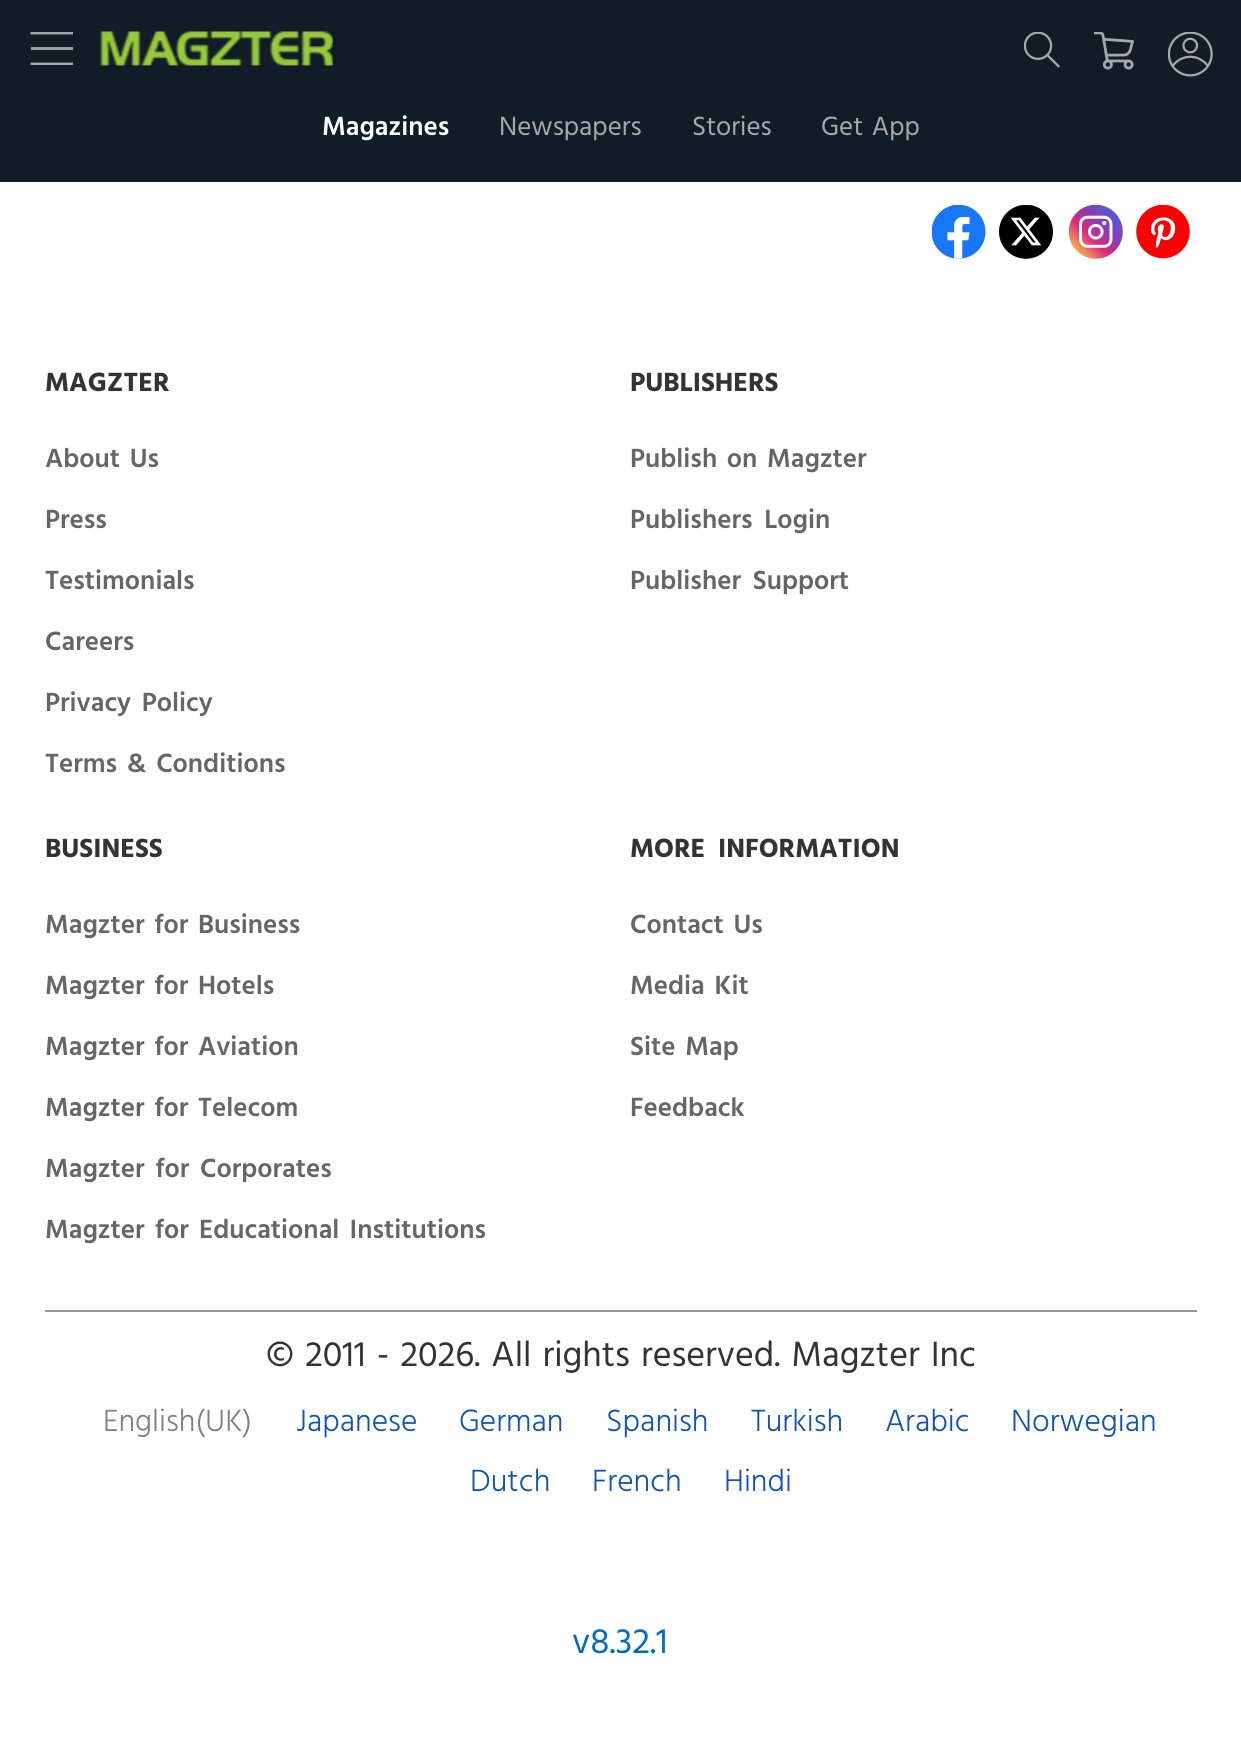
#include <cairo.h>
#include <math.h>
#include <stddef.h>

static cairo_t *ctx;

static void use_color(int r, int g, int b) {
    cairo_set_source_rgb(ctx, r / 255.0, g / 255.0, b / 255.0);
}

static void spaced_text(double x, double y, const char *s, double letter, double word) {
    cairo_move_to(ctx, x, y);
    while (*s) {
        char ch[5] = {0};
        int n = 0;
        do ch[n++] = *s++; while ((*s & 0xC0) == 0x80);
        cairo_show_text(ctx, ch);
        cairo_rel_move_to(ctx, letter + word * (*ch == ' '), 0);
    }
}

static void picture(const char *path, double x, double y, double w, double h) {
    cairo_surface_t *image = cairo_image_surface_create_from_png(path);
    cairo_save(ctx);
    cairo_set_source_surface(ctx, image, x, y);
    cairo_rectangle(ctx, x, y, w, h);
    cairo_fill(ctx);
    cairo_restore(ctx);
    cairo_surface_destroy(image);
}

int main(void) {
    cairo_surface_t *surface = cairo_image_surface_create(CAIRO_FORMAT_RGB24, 1241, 1737);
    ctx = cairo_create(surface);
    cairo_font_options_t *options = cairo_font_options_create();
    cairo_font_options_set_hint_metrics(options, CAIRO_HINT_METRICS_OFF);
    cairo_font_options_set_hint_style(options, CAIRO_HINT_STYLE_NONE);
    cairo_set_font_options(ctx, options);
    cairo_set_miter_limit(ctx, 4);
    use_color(255, 255, 255);
    cairo_paint(ctx);
    use_color(17, 28, 38);
    cairo_rectangle(ctx, 0, 0, 1241, 182);
    cairo_fill(ctx);
    cairo_save(ctx);
    cairo_rectangle(ctx, 29, 32, 45, 33);
    cairo_clip(ctx);
    cairo_new_path(ctx);
    cairo_move_to(ctx, 30.5, 33);
    cairo_line_to(ctx, 73, 33);
    use_color(168, 168, 168);
    cairo_set_line_width(ctx, 2.8);
    cairo_stroke(ctx);
    cairo_restore(ctx);
    use_color(158, 159, 159);
    cairo_rectangle(ctx, 31, 47, 42, 3);
    cairo_fill(ctx);
    cairo_save(ctx);
    cairo_rectangle(ctx, 29, 32, 45, 33);
    cairo_clip(ctx);
    cairo_new_path(ctx);
    cairo_move_to(ctx, 30.5, 64);
    cairo_line_to(ctx, 73, 64);
    use_color(168, 168, 168);
    cairo_set_line_width(ctx, 2.8);
    cairo_stroke(ctx);
    cairo_restore(ctx);
    picture("img1.png", 100, 31, 233, 35);
    picture("img2.png", 1024, 32, 36, 36);
    picture("img3.png", 1094, 32, 40, 38);
    picture("img4.png", 1168, 32, 45, 45);
    cairo_select_font_face(ctx, "Hind SemiBold", CAIRO_FONT_SLANT_NORMAL, CAIRO_FONT_WEIGHT_NORMAL);
    cairo_set_font_size(ctx, 27);
    use_color(255, 255, 255);
    cairo_move_to(ctx, 322, 135);
    cairo_show_text(ctx, "Magazines");
    cairo_select_font_face(ctx, "Hind", CAIRO_FONT_SLANT_NORMAL, CAIRO_FONT_WEIGHT_NORMAL);
    use_color(168, 168, 168);
    cairo_move_to(ctx, 499, 135);
    cairo_show_text(ctx, "Newspapers");
    cairo_move_to(ctx, 692, 135);
    cairo_show_text(ctx, "Stories");
    spaced_text(821, 135, "Get App", 0, 2);
    picture("img5.png", 932, 205, 54, 54);
    picture("img6.png", 999, 205, 54, 54);
    picture("img7.png", 1069, 205, 54, 54);
    picture("img8.png", 1136, 205, 54, 54);
    cairo_select_font_face(ctx, "Hind", CAIRO_FONT_SLANT_NORMAL, CAIRO_FONT_WEIGHT_BOLD);
    use_color(51, 51, 51);
    cairo_move_to(ctx, 45, 391);
    cairo_show_text(ctx, "MAGZTER");
    cairo_select_font_face(ctx, "Hind SemiBold", CAIRO_FONT_SLANT_NORMAL, CAIRO_FONT_WEIGHT_NORMAL);
    use_color(102, 102, 102);
    spaced_text(45, 467, "About Us", 0, 3);
    cairo_move_to(ctx, 45, 528);
    cairo_show_text(ctx, "Press");
    cairo_move_to(ctx, 45, 589);
    cairo_show_text(ctx, "Testimonials");
    cairo_move_to(ctx, 45, 650);
    cairo_show_text(ctx, "Careers");
    spaced_text(45, 711, "Privacy Policy", 0, 4);
    spaced_text(45, 772, "Terms & Conditions", 0, 3);
    cairo_select_font_face(ctx, "Hind", CAIRO_FONT_SLANT_NORMAL, CAIRO_FONT_WEIGHT_BOLD);
    use_color(51, 51, 51);
    cairo_move_to(ctx, 630, 391);
    cairo_show_text(ctx, "PUBLISHERS");
    cairo_select_font_face(ctx, "Hind SemiBold", CAIRO_FONT_SLANT_NORMAL, CAIRO_FONT_WEIGHT_NORMAL);
    use_color(102, 102, 102);
    spaced_text(630, 467, "Publish on Magzter", 0, 3);
    spaced_text(630, 528, "Publishers Login", 0, 5);
    spaced_text(630, 589, "Publisher Support", 0, 5);
    cairo_select_font_face(ctx, "Hind", CAIRO_FONT_SLANT_NORMAL, CAIRO_FONT_WEIGHT_BOLD);
    use_color(51, 51, 51);
    cairo_move_to(ctx, 45, 857);
    cairo_show_text(ctx, "BUSINESS");
    cairo_select_font_face(ctx, "Hind SemiBold", CAIRO_FONT_SLANT_NORMAL, CAIRO_FONT_WEIGHT_NORMAL);
    use_color(102, 102, 102);
    spaced_text(45, 933, "Magzter for Business", 0, 3);
    spaced_text(45, 994, "Magzter for Hotels", 0, 3);
    spaced_text(45, 1055, "Magzter for Aviation", 0, 3);
    spaced_text(45, 1116, "Magzter for Telecom", 0, 3);
    spaced_text(45, 1177, "Magzter for Corporates", 0, 4);
    spaced_text(45, 1238, "Magzter for Educational Institutions", 0, 3.5);
    cairo_select_font_face(ctx, "Hind", CAIRO_FONT_SLANT_NORMAL, CAIRO_FONT_WEIGHT_BOLD);
    use_color(51, 51, 51);
    spaced_text(630, 857, "MORE INFORMATION", 0, 6);
    cairo_select_font_face(ctx, "Hind SemiBold", CAIRO_FONT_SLANT_NORMAL, CAIRO_FONT_WEIGHT_NORMAL);
    use_color(102, 102, 102);
    spaced_text(630, 933, "Contact Us", 0, 3);
    spaced_text(630, 994, "Media Kit", 0, 3);
    spaced_text(630, 1055, "Site Map", 0, 3);
    cairo_move_to(ctx, 630, 1116);
    cairo_show_text(ctx, "Feedback");
    use_color(152, 149, 149);
    cairo_rectangle(ctx, 45, 1310, 1152, 2);
    cairo_fill(ctx);
    cairo_select_font_face(ctx, "Hind", CAIRO_FONT_SLANT_NORMAL, CAIRO_FONT_WEIGHT_NORMAL);
    cairo_set_font_size(ctx, 36);
    use_color(51, 51, 51);
    spaced_text(266, 1366, "© 2011 - 2026. All rights reserved. Magzter Inc", 0, 2.25);
    cairo_select_font_face(ctx, "Hind Light", CAIRO_FONT_SLANT_NORMAL, CAIRO_FONT_WEIGHT_NORMAL);
    cairo_set_font_size(ctx, 31.5);
    use_color(128, 128, 128);
    cairo_move_to(ctx, 103, 1431);
    cairo_show_text(ctx, "English(UK)");
    use_color(18, 83, 181);
    cairo_move_to(ctx, 296, 1431);
    cairo_show_text(ctx, "Japanese");
    cairo_move_to(ctx, 459, 1431);
    cairo_show_text(ctx, "German");
    cairo_move_to(ctx, 606, 1431);
    cairo_show_text(ctx, "Spanish");
    cairo_move_to(ctx, 751, 1431);
    cairo_show_text(ctx, "Turkish");
    cairo_move_to(ctx, 885, 1431);
    cairo_show_text(ctx, "Arabic");
    cairo_move_to(ctx, 1011, 1431);
    cairo_show_text(ctx, "Norwegian");
    cairo_move_to(ctx, 470, 1491);
    cairo_show_text(ctx, "Dutch");
    cairo_move_to(ctx, 592, 1491);
    cairo_show_text(ctx, "French");
    cairo_move_to(ctx, 724, 1491);
    cairo_show_text(ctx, "Hindi");
    cairo_select_font_face(ctx, "Hind", CAIRO_FONT_SLANT_NORMAL, CAIRO_FONT_WEIGHT_NORMAL);
    cairo_set_font_size(ctx, 36);
    use_color(0, 108, 192);
    cairo_move_to(ctx, 572, 1653);
    cairo_show_text(ctx, "v8.32.1");
    cairo_surface_write_to_png(surface, "result.png");
    cairo_font_options_destroy(options);
    cairo_destroy(ctx);
    cairo_surface_destroy(surface);
    return 0;
}
